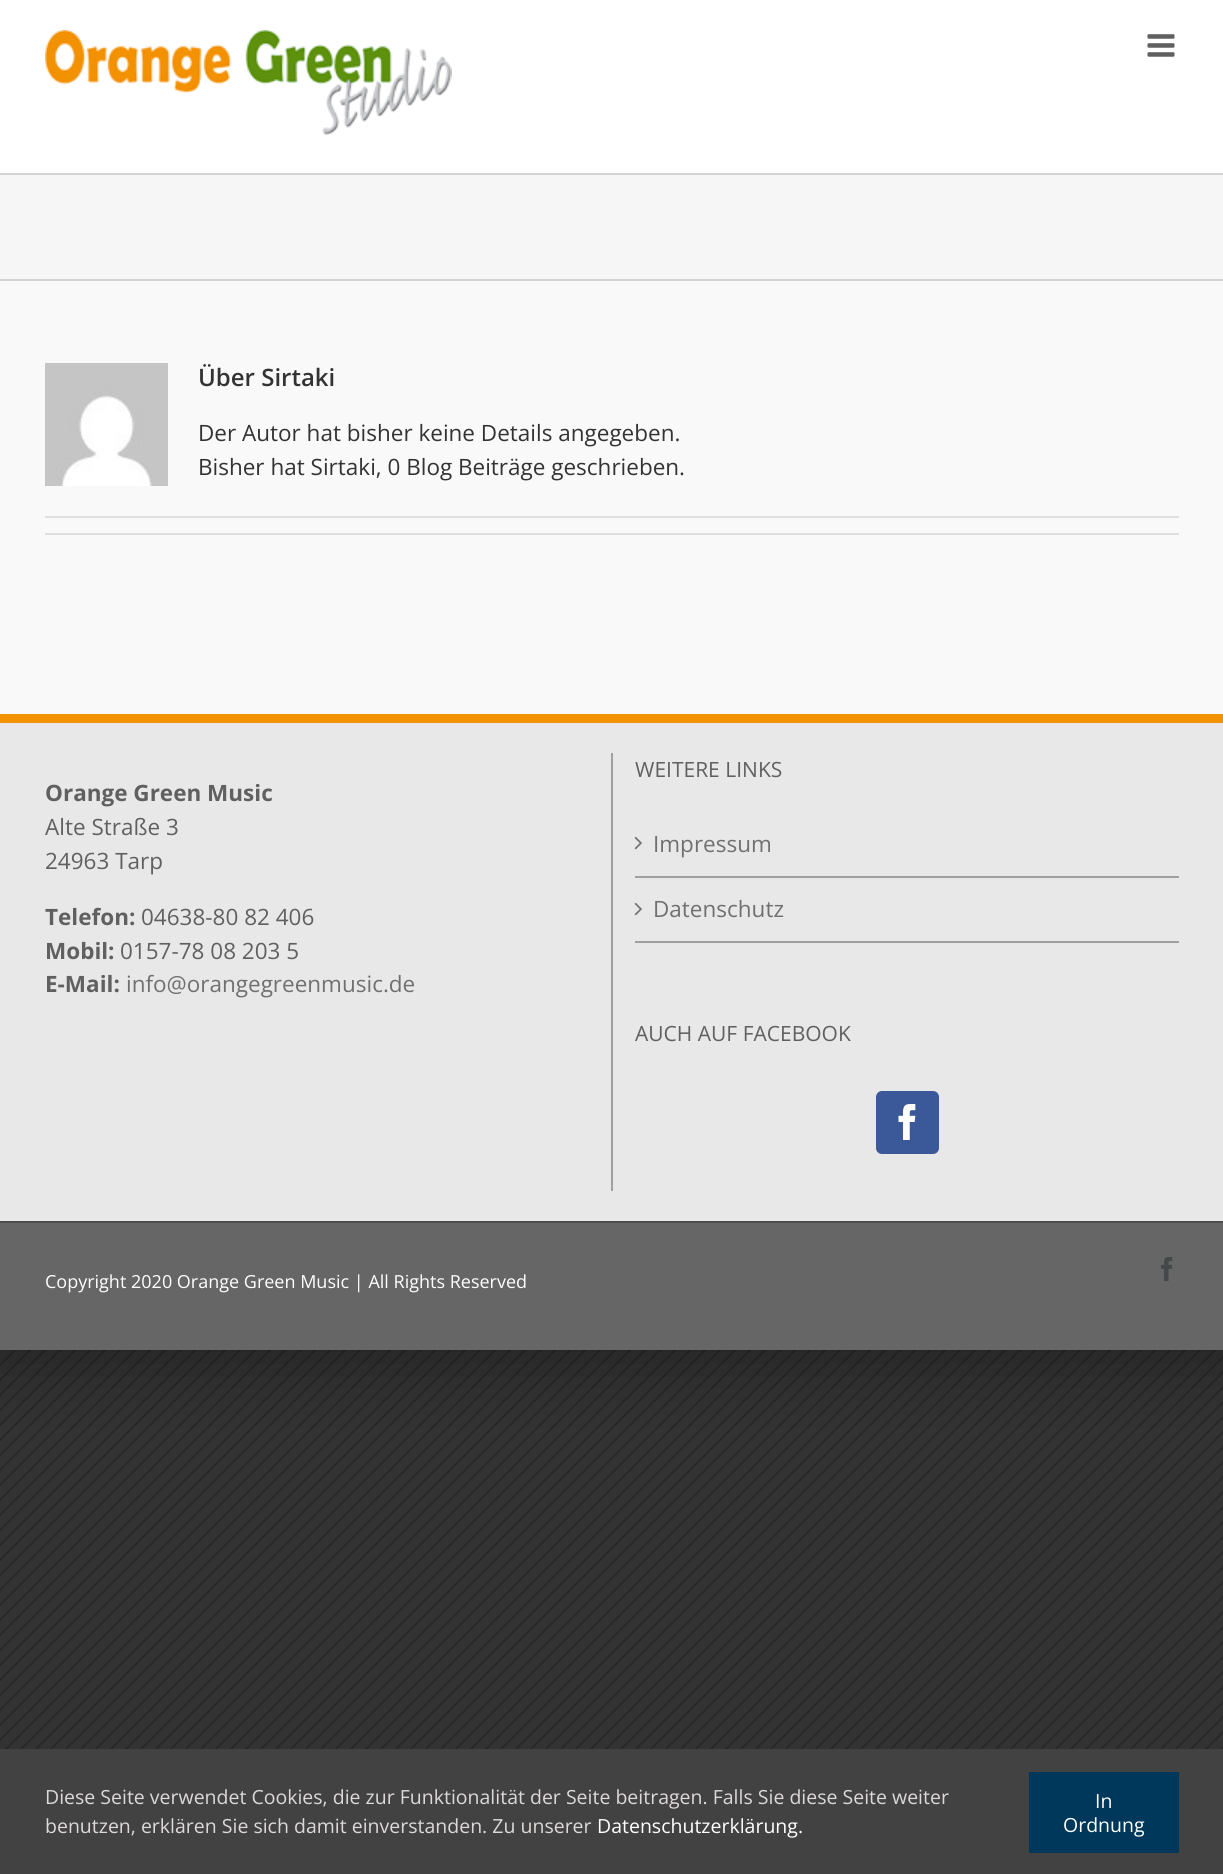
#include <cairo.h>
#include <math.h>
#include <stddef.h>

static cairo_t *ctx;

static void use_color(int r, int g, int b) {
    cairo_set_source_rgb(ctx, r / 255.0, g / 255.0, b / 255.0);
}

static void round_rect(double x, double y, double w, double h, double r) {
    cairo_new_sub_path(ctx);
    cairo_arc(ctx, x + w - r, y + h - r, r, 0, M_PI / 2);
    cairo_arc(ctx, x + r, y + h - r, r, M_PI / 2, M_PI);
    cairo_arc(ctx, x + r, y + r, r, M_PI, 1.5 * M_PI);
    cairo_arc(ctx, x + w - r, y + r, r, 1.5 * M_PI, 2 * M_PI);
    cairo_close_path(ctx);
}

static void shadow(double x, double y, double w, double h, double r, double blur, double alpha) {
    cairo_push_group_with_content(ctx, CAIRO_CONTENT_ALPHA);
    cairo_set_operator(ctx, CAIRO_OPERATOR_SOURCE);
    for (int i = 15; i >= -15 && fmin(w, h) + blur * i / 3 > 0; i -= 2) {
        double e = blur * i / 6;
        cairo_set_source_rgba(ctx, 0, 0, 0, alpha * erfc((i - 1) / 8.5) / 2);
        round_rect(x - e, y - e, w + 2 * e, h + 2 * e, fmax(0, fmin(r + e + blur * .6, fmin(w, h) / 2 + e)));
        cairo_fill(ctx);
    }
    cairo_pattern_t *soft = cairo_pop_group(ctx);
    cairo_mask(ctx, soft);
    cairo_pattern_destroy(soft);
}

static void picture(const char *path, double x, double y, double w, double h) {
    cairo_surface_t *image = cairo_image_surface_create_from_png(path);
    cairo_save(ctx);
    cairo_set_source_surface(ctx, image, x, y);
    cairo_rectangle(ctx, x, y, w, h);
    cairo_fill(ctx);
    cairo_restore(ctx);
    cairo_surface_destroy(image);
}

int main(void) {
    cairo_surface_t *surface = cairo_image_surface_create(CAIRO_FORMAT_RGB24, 1223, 1874);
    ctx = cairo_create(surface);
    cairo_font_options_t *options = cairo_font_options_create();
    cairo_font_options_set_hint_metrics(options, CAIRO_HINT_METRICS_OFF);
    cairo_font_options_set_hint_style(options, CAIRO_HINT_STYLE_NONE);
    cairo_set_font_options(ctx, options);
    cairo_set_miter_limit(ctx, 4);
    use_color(255, 255, 255);
    cairo_paint(ctx);
    picture("img1.png", 0, 1350, 1223, 399);
    use_color(0, 0, 0);
    shadow(-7, -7, 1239, 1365, 0, 37.5, 0.35);
    use_color(255, 255, 255);
    cairo_rectangle(ctx, 0, 0, 1223, 173);
    cairo_fill(ctx);
    picture("img2.png", 45, 30, 407, 105);
    picture("img3.png", 1147, 34, 28, 23);
    use_color(246, 246, 246);
    cairo_rectangle(ctx, 0, 175, 1223, 104);
    cairo_fill(ctx);
    use_color(210, 211, 212);
    cairo_rectangle(ctx, 0, 173, 1223, 2);
    cairo_fill(ctx);
    cairo_rectangle(ctx, 0, 279, 1223, 2);
    cairo_fill(ctx);
    use_color(249, 249, 249);
    cairo_rectangle(ctx, 0, 281, 1223, 433);
    cairo_fill(ctx);
    picture("img4.png", 45, 363, 123, 123);
    cairo_select_font_face(ctx, "Open Sans SemiBold", CAIRO_FONT_SLANT_NORMAL, CAIRO_FONT_WEIGHT_NORMAL);
    cairo_set_font_size(ctx, 24);
    use_color(51, 51, 51);
    cairo_move_to(ctx, 198, 386);
    cairo_show_text(ctx, "Über Sirtaki");
    cairo_select_font_face(ctx, "Open Sans", CAIRO_FONT_SLANT_NORMAL, CAIRO_FONT_WEIGHT_NORMAL);
    cairo_set_font_size(ctx, 22.5);
    cairo_move_to(ctx, 198, 441);
    cairo_show_text(ctx, "Der Autor hat bisher keine Details angegeben.");
    cairo_move_to(ctx, 198, 475);
    cairo_show_text(ctx, "Bisher hat Sirtaki, 0 Blog Beiträge geschrieben.");
    use_color(224, 222, 222);
    cairo_rectangle(ctx, 45, 516, 1134, 2);
    cairo_fill(ctx);
    cairo_rectangle(ctx, 45, 533, 1134, 2);
    cairo_fill(ctx);
    use_color(232, 232, 232);
    cairo_rectangle(ctx, 0, 723, 1223, 498);
    cairo_fill(ctx);
    use_color(243, 146, 0);
    cairo_rectangle(ctx, 0, 714, 1223, 9);
    cairo_fill(ctx);
    use_color(160, 160, 160);
    cairo_rectangle(ctx, 611, 753, 2, 438);
    cairo_fill(ctx);
    cairo_select_font_face(ctx, "Open Sans", CAIRO_FONT_SLANT_NORMAL, CAIRO_FONT_WEIGHT_BOLD);
    use_color(96, 96, 96);
    cairo_move_to(ctx, 45, 801);
    cairo_show_text(ctx, "Orange Green Music");
    cairo_select_font_face(ctx, "Open Sans", CAIRO_FONT_SLANT_NORMAL, CAIRO_FONT_WEIGHT_NORMAL);
    cairo_move_to(ctx, 45, 835);
    cairo_show_text(ctx, "Alte Straße 3");
    cairo_move_to(ctx, 45, 869);
    cairo_show_text(ctx, "24963 Tarp");
    cairo_select_font_face(ctx, "Open Sans", CAIRO_FONT_SLANT_NORMAL, CAIRO_FONT_WEIGHT_BOLD);
    cairo_move_to(ctx, 45, 925);
    cairo_show_text(ctx, "Telefon:");
    cairo_select_font_face(ctx, "Open Sans", CAIRO_FONT_SLANT_NORMAL, CAIRO_FONT_WEIGHT_NORMAL);
    cairo_move_to(ctx, 141, 925);
    cairo_show_text(ctx, "04638-80 82 406");
    cairo_select_font_face(ctx, "Open Sans", CAIRO_FONT_SLANT_NORMAL, CAIRO_FONT_WEIGHT_BOLD);
    cairo_move_to(ctx, 45, 959);
    cairo_show_text(ctx, "Mobil:");
    cairo_select_font_face(ctx, "Open Sans", CAIRO_FONT_SLANT_NORMAL, CAIRO_FONT_WEIGHT_NORMAL);
    cairo_move_to(ctx, 120, 959);
    cairo_show_text(ctx, "0157-78 08 203 5");
    cairo_select_font_face(ctx, "Open Sans", CAIRO_FONT_SLANT_NORMAL, CAIRO_FONT_WEIGHT_BOLD);
    cairo_move_to(ctx, 45, 992);
    cairo_show_text(ctx, "E-Mail:");
    cairo_select_font_face(ctx, "Open Sans", CAIRO_FONT_SLANT_NORMAL, CAIRO_FONT_WEIGHT_NORMAL);
    use_color(112, 112, 112);
    cairo_move_to(ctx, 126, 992);
    cairo_show_text(ctx, "info@orangegreenmusic.de");
    cairo_set_font_size(ctx, 21);
    use_color(96, 96, 96);
    cairo_move_to(ctx, 635, 777);
    cairo_show_text(ctx, "WEITERE LINKS");
    use_color(160, 160, 160);
    cairo_rectangle(ctx, 635, 876, 544, 2);
    cairo_fill(ctx);
    picture("img5.png", 634, 836, 8, 14);
    cairo_set_font_size(ctx, 22.5);
    use_color(112, 112, 112);
    cairo_move_to(ctx, 653, 852);
    cairo_show_text(ctx, "Impressum");
    use_color(160, 160, 160);
    cairo_rectangle(ctx, 635, 941, 544, 2);
    cairo_fill(ctx);
    picture("img5.png", 634, 902, 8, 14);
    use_color(112, 112, 112);
    cairo_move_to(ctx, 653, 917);
    cairo_show_text(ctx, "Datenschutz");
    cairo_set_font_size(ctx, 21);
    use_color(96, 96, 96);
    cairo_move_to(ctx, 635, 1041);
    cairo_show_text(ctx, "AUCH AUF FACEBOOK");
    use_color(59, 89, 152);
    round_rect(877, 1092, 61, 61, 5);
    cairo_fill_preserve(ctx);
    cairo_stroke(ctx);
    picture("img6.png", 898, 1104, 18, 36);
    use_color(102, 102, 102);
    cairo_rectangle(ctx, 0, 1223, 1223, 127);
    cairo_fill(ctx);
    use_color(75, 76, 77);
    cairo_rectangle(ctx, 0, 1221, 1223, 2);
    cairo_fill(ctx);
    picture("img7.png", 1161, 1257, 12, 24);
    cairo_set_font_size(ctx, 18);
    use_color(255, 255, 255);
    cairo_move_to(ctx, 45, 1288);
    cairo_show_text(ctx, "Copyright 2020 Orange Green Music | All Rights Reserved");
    use_color(66, 66, 66);
    cairo_rectangle(ctx, 0, 1749, 1223, 125);
    cairo_fill(ctx);
    cairo_set_font_size(ctx, 19.5);
    use_color(221, 217, 217);
    cairo_move_to(ctx, 45, 1804);
    cairo_show_text(ctx, "Diese Seite verwendet Cookies, die zur Funktionalität der Seite beitragen. Falls Sie diese Seite weiter");
    cairo_move_to(ctx, 45, 1833);
    cairo_show_text(ctx, "benutzen, erklären Sie sich damit einverstanden. Zu unserer");
    use_color(255, 255, 255);
    cairo_move_to(ctx, 597, 1833);
    cairo_show_text(ctx, "Datenschutzerklärung.");
    use_color(0, 56, 92);
    cairo_rectangle(ctx, 1029, 1772, 150, 81);
    cairo_fill(ctx);
    use_color(255, 255, 255);
    cairo_move_to(ctx, 1095, 1808);
    cairo_show_text(ctx, "In");
    cairo_move_to(ctx, 1063, 1832);
    cairo_show_text(ctx, "Ordnung");
    cairo_surface_write_to_png(surface, "result.png");
    cairo_font_options_destroy(options);
    cairo_destroy(ctx);
    cairo_surface_destroy(surface);
    return 0;
}
